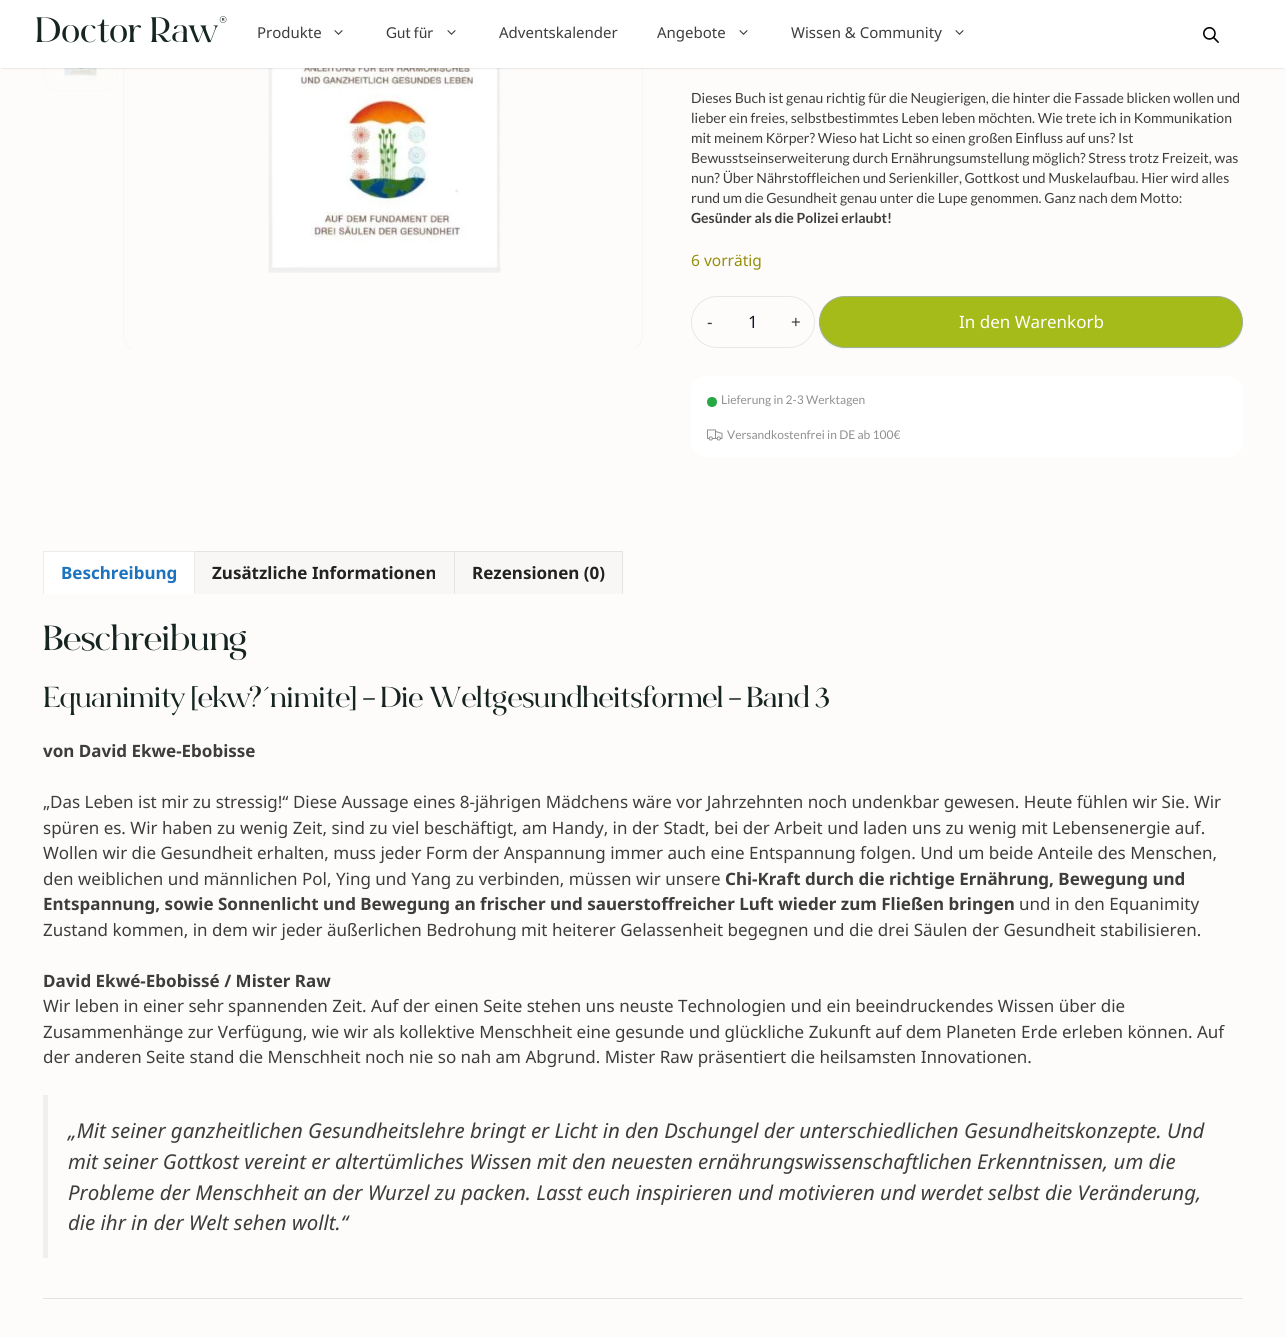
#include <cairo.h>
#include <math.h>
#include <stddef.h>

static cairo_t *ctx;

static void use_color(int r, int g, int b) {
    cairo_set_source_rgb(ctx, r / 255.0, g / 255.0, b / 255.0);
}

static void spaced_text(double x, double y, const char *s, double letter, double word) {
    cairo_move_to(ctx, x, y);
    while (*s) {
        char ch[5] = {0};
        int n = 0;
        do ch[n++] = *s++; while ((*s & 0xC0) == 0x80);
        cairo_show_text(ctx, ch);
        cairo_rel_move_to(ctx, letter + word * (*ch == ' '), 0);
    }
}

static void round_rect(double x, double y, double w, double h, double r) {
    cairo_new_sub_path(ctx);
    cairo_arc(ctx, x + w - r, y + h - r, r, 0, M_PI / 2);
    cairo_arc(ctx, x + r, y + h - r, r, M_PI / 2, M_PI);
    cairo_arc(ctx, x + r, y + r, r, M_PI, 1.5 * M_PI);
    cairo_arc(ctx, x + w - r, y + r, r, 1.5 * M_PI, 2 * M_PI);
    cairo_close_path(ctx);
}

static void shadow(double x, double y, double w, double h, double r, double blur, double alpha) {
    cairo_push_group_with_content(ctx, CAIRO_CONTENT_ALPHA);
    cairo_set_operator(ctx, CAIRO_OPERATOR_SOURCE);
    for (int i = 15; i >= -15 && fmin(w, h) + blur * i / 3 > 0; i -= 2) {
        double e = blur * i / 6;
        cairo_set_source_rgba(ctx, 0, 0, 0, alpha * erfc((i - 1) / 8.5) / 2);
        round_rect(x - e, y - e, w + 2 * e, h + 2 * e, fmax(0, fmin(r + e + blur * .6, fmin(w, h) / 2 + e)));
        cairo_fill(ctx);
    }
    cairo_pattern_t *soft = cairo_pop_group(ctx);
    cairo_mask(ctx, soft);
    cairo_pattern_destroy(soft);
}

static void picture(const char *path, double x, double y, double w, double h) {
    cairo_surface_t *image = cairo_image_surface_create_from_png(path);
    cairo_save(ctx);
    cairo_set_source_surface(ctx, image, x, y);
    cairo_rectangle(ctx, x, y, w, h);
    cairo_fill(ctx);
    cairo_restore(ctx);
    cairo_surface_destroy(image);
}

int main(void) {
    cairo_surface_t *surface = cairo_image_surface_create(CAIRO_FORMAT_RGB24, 1286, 1337);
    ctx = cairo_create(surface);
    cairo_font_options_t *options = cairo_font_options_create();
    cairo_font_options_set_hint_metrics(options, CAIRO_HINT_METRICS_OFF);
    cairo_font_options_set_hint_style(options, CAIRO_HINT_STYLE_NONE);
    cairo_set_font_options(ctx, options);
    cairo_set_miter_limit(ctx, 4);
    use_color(253, 252, 251);
    cairo_paint(ctx);
    round_rect(43.5, 16.5, 74, 74, 15.5);
    use_color(250, 249, 249);
    cairo_set_line_width(ctx, 1);
    cairo_stroke(ctx);
    picture("img4.png", 63, 68, 39, 12);
    cairo_save(ctx);
    cairo_rectangle(ctx, 123, 0, 520, 349);
    cairo_clip(ctx);
    round_rect(123.5, -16.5, 519, 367, 15.5);
    use_color(246, 246, 246);
    cairo_stroke(ctx);
    cairo_restore(ctx);
    picture("img5.png", 268, 68, 233, 206);
    use_color(0, 0, 0);
    shadow(2, 4, 1282, 64, 0, 1, 0.2);
    use_color(255, 255, 255);
    cairo_rectangle(ctx, 0, 0, 1286, 68);
    cairo_fill(ctx);
    picture("img1.png", 36, 16, 191, 27);
    cairo_select_font_face(ctx, "Noto Sans", CAIRO_FONT_SLANT_NORMAL, CAIRO_FONT_WEIGHT_NORMAL);
    cairo_set_font_size(ctx, 15);
    use_color(61, 61, 61);
    cairo_move_to(ctx, 257, 38);
    cairo_show_text(ctx, "Produkte");
    picture("img2.png", 334, 30, 9, 5);
    cairo_select_font_face(ctx, "Lato", CAIRO_FONT_SLANT_NORMAL, CAIRO_FONT_WEIGHT_NORMAL);
    cairo_move_to(ctx, 386, 38);
    cairo_show_text(ctx, "Gut für");
    picture("img2.png", 447, 30, 9, 5);
    cairo_select_font_face(ctx, "Noto Sans", CAIRO_FONT_SLANT_NORMAL, CAIRO_FONT_WEIGHT_NORMAL);
    cairo_move_to(ctx, 499, 38);
    cairo_show_text(ctx, "Adventskalender");
    cairo_move_to(ctx, 657, 38);
    cairo_show_text(ctx, "Angebote");
    picture("img2.png", 739, 30, 9, 5);
    cairo_move_to(ctx, 791, 38);
    cairo_show_text(ctx, "Wissen & Community");
    picture("img2.png", 955, 30, 9, 5);
    picture("img3.png", 1203, 27, 16, 16);
    cairo_select_font_face(ctx, "Lato", CAIRO_FONT_SLANT_NORMAL, CAIRO_FONT_WEIGHT_NORMAL);
    cairo_set_font_size(ctx, 14);
    cairo_move_to(ctx, 691, 103);
    cairo_show_text(ctx, "Dieses Buch ist genau richtig für die Neugierigen, die hinter die Fassade blicken wollen und");
    cairo_move_to(ctx, 691, 123);
    cairo_show_text(ctx, "lieber ein freies, selbstbestimmtes Leben leben möchten. Wie trete ich in Kommunikation");
    cairo_move_to(ctx, 691, 143);
    cairo_show_text(ctx, "mit meinem Körper? Wieso hat Licht so einen großen Einfluss auf uns? Ist");
    cairo_move_to(ctx, 691, 163);
    cairo_show_text(ctx, "Bewusstseinserweiterung durch Ernährungsumstellung möglich? Stress trotz Freizeit, was");
    cairo_move_to(ctx, 691, 183);
    cairo_show_text(ctx, "nun? Über Nährstoffleichen und Serienkiller, Gottkost und Muskelaufbau. Hier wird alles");
    cairo_move_to(ctx, 691, 203);
    cairo_show_text(ctx, "rund um die Gesundheit genau unter die Lupe genommen. Ganz nach dem Motto:");
    cairo_select_font_face(ctx, "Lato", CAIRO_FONT_SLANT_NORMAL, CAIRO_FONT_WEIGHT_BOLD);
    cairo_move_to(ctx, 691, 223);
    cairo_show_text(ctx, "Gesünder als die Polizei erlaubt!");
    cairo_select_font_face(ctx, "Noto Sans", CAIRO_FONT_SLANT_NORMAL, CAIRO_FONT_WEIGHT_NORMAL);
    cairo_set_font_size(ctx, 15.5);
    use_color(149, 142, 9);
    cairo_move_to(ctx, 691, 266);
    cairo_show_text(ctx, "6 vorrätig");
    round_rect(691.5, 296.5, 123, 51, 25.5);
    use_color(230, 231, 232);
    cairo_stroke(ctx);
    cairo_set_font_size(ctx, 17);
    use_color(61, 61, 61);
    cairo_move_to(ctx, 707, 328);
    cairo_show_text(ctx, "-");
    use_color(16, 24, 40);
    cairo_move_to(ctx, 748, 328);
    cairo_show_text(ctx, "1");
    use_color(61, 61, 61);
    cairo_move_to(ctx, 791, 328);
    cairo_show_text(ctx, "+");
    use_color(16, 24, 40);
    shadow(819, 297, 424, 52, 26, 1, 0.05);
    use_color(165, 187, 26);
    round_rect(819.5, 296.5, 423, 51, 25.5);
    cairo_fill_preserve(ctx);
    use_color(158, 177, 149);
    cairo_stroke(ctx);
    use_color(255, 255, 255);
    cairo_move_to(ctx, 959, 328);
    cairo_show_text(ctx, "In den Warenkorb");
    round_rect(691, 376, 552, 81, 16);
    cairo_fill(ctx);
    use_color(40, 167, 69);
    cairo_arc(ctx, 712, 402, 5, 0, 2 * M_PI);
    cairo_fill(ctx);
    cairo_select_font_face(ctx, "Lato", CAIRO_FONT_SLANT_NORMAL, CAIRO_FONT_WEIGHT_NORMAL);
    cairo_set_font_size(ctx, 12);
    use_color(144, 144, 144);
    cairo_move_to(ctx, 721, 404);
    cairo_show_text(ctx, "Lieferung in 2-3 Werktagen");
    picture("img6.png", 707, 429, 16, 12);
    cairo_move_to(ctx, 727, 439);
    cairo_show_text(ctx, "Versandkostenfrei in DE ab 100€");
    use_color(255, 255, 255);
    cairo_rectangle(ctx, 43, 551, 152, 43);
    cairo_fill(ctx);
    use_color(235, 235, 235);
    cairo_new_path(ctx);
    cairo_move_to(ctx, 43, 551);
    cairo_line_to(ctx, 195, 551);
    cairo_line_to(ctx, 194, 552);
    cairo_line_to(ctx, 44, 552);
    cairo_close_path(ctx);
    cairo_fill(ctx);
    cairo_set_source_rgba(ctx, 0, 0, 0, 0.08);
    cairo_new_path(ctx);
    cairo_move_to(ctx, 195, 551);
    cairo_line_to(ctx, 195, 594);
    cairo_line_to(ctx, 194, 594);
    cairo_line_to(ctx, 194, 552);
    cairo_close_path(ctx);
    cairo_fill(ctx);
    cairo_new_path(ctx);
    cairo_move_to(ctx, 43, 594);
    cairo_line_to(ctx, 43, 551);
    cairo_line_to(ctx, 44, 552);
    cairo_line_to(ctx, 44, 594);
    cairo_close_path(ctx);
    cairo_fill(ctx);
    cairo_select_font_face(ctx, "Noto Sans", CAIRO_FONT_SLANT_NORMAL, CAIRO_FONT_WEIGHT_BOLD);
    cairo_set_font_size(ctx, 17);
    use_color(30, 115, 190);
    cairo_move_to(ctx, 61, 579);
    cairo_show_text(ctx, "Beschreibung");
    use_color(248, 247, 246);
    cairo_rectangle(ctx, 195, 551, 428, 43);
    cairo_fill(ctx);
    use_color(228, 227, 226);
    cairo_new_path(ctx);
    cairo_move_to(ctx, 195, 551);
    cairo_line_to(ctx, 455, 551);
    cairo_line_to(ctx, 454, 552);
    cairo_line_to(ctx, 195, 552);
    cairo_close_path(ctx);
    cairo_fill(ctx);
    cairo_set_source_rgba(ctx, 0, 0, 0, 0.08);
    cairo_new_path(ctx);
    cairo_move_to(ctx, 455, 551);
    cairo_line_to(ctx, 455, 594);
    cairo_line_to(ctx, 454, 594);
    cairo_line_to(ctx, 454, 552);
    cairo_close_path(ctx);
    cairo_fill(ctx);
    use_color(34, 34, 34);
    cairo_move_to(ctx, 212, 579);
    cairo_show_text(ctx, "Zusätzliche Informationen");
    use_color(228, 227, 226);
    cairo_new_path(ctx);
    cairo_move_to(ctx, 455, 551);
    cairo_line_to(ctx, 623, 551);
    cairo_line_to(ctx, 622, 552);
    cairo_line_to(ctx, 455, 552);
    cairo_close_path(ctx);
    cairo_fill(ctx);
    cairo_set_source_rgba(ctx, 0, 0, 0, 0.08);
    cairo_new_path(ctx);
    cairo_move_to(ctx, 623, 551);
    cairo_line_to(ctx, 623, 594);
    cairo_line_to(ctx, 622, 594);
    cairo_line_to(ctx, 622, 552);
    cairo_close_path(ctx);
    cairo_fill(ctx);
    use_color(34, 34, 34);
    cairo_move_to(ctx, 472, 579);
    cairo_show_text(ctx, "Rezensionen (0)");
    cairo_select_font_face(ctx, "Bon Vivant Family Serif", CAIRO_FONT_SLANT_NORMAL, CAIRO_FONT_WEIGHT_BOLD);
    cairo_set_font_size(ctx, 35);
    use_color(22, 37, 33);
    spaced_text(43, 650, "Beschreibung", -0.75, 0);
    cairo_set_font_size(ctx, 29);
    spaced_text(43, 707, "Equanimity [ekw?`nimite] – Die Weltgesundheitsformel – Band 3", -0.58, 0);
    cairo_select_font_face(ctx, "Noto Sans", CAIRO_FONT_SLANT_NORMAL, CAIRO_FONT_WEIGHT_BOLD);
    cairo_set_font_size(ctx, 17);
    use_color(61, 61, 61);
    cairo_move_to(ctx, 43, 757);
    cairo_show_text(ctx, "von David Ekwe-Ebobisse");
    cairo_select_font_face(ctx, "Noto Sans", CAIRO_FONT_SLANT_NORMAL, CAIRO_FONT_WEIGHT_NORMAL);
    cairo_move_to(ctx, 43, 808);
    cairo_show_text(ctx, "„Das Leben ist mir zu stressig!“ Diese Aussage eines 8-jährigen Mädchens wäre vor Jahrzehnten noch undenkbar gewesen. Heute fühlen wir Sie. Wir");
    cairo_move_to(ctx, 43, 834);
    cairo_show_text(ctx, "spüren es. Wir haben zu wenig Zeit, sind zu viel beschäftigt, am Handy, in der Stadt, bei der Arbeit und laden uns zu wenig mit Lebensenergie auf.");
    cairo_move_to(ctx, 43, 859);
    cairo_show_text(ctx, "Wollen wir die Gesundheit erhalten, muss jeder Form der Anspannung immer auch eine Entspannung folgen. Und um beide Anteile des Menschen,");
    cairo_move_to(ctx, 43, 885);
    cairo_show_text(ctx, "den weiblichen und männlichen Pol, Ying und Yang zu verbinden, müssen wir unsere");
    cairo_select_font_face(ctx, "Noto Sans", CAIRO_FONT_SLANT_NORMAL, CAIRO_FONT_WEIGHT_BOLD);
    cairo_move_to(ctx, 725, 885);
    cairo_show_text(ctx, "Chi-Kraft durch die richtige Ernährung, Bewegung und");
    cairo_move_to(ctx, 43, 910);
    cairo_show_text(ctx, "Entspannung, sowie Sonnenlicht und Bewegung an frischer und sauerstoffreicher Luft wieder zum Fließen bringen");
    cairo_select_font_face(ctx, "Noto Sans", CAIRO_FONT_SLANT_NORMAL, CAIRO_FONT_WEIGHT_NORMAL);
    cairo_move_to(ctx, 1019, 910);
    cairo_show_text(ctx, "und in den Equanimity");
    cairo_move_to(ctx, 43, 936);
    cairo_show_text(ctx, "Zustand kommen, in dem wir jeder äußerlichen Bedrohung mit heiterer Gelassenheit begegnen und die drei Säulen der Gesundheit stabilisieren.");
    cairo_select_font_face(ctx, "Noto Sans", CAIRO_FONT_SLANT_NORMAL, CAIRO_FONT_WEIGHT_BOLD);
    cairo_move_to(ctx, 43, 987);
    cairo_show_text(ctx, "David Ekwé-Ebobissé / Mister Raw");
    cairo_select_font_face(ctx, "Noto Sans", CAIRO_FONT_SLANT_NORMAL, CAIRO_FONT_WEIGHT_NORMAL);
    cairo_move_to(ctx, 43, 1012);
    cairo_show_text(ctx, "Wir leben in einer sehr spannenden Zeit. Auf der einen Seite stehen uns neuste Technologien und ein beeindruckendes Wissen über die");
    cairo_move_to(ctx, 43, 1038);
    cairo_show_text(ctx, "Zusammenhänge zur Verfügung, wie wir als kollektive Menschheit eine gesunde und glückliche Zukunft auf dem Planeten Erde erleben können. Auf");
    cairo_move_to(ctx, 43, 1063);
    cairo_show_text(ctx, "der anderen Seite stand die Menschheit noch nie so nah am Abgrund. Mister Raw präsentiert die heilsamsten Innovationen.");
    use_color(240, 239, 238);
    cairo_rectangle(ctx, 43, 1095, 5, 163);
    cairo_fill(ctx);
    cairo_select_font_face(ctx, "Noto Sans", CAIRO_FONT_SLANT_ITALIC, CAIRO_FONT_WEIGHT_NORMAL);
    cairo_set_font_size(ctx, 20.4);
    use_color(61, 61, 61);
    cairo_move_to(ctx, 68, 1138);
    cairo_show_text(ctx, "„Mit seiner ganzheitlichen Gesundheitslehre bringt er Licht in den Dschungel der unterschiedlichen Gesundheitskonzepte. Und");
    cairo_move_to(ctx, 68, 1169);
    cairo_show_text(ctx, "mit seiner Gottkost vereint er altertümliches Wissen mit den neuesten ernährungswissenschaftlichen Erkenntnissen, um die");
    cairo_move_to(ctx, 68, 1200);
    cairo_show_text(ctx, "Probleme der Menschheit an der Wurzel zu packen. Lasst euch inspirieren und motivieren und werdet selbst die Veränderung,");
    cairo_move_to(ctx, 68, 1230);
    cairo_show_text(ctx, "die ihr in der Welt sehen wollt.“");
    use_color(228, 227, 226);
    cairo_rectangle(ctx, 43, 1298, 1200, 1);
    cairo_fill(ctx);
    cairo_surface_write_to_png(surface, "result.png");
    cairo_font_options_destroy(options);
    cairo_destroy(ctx);
    cairo_surface_destroy(surface);
    return 0;
}
